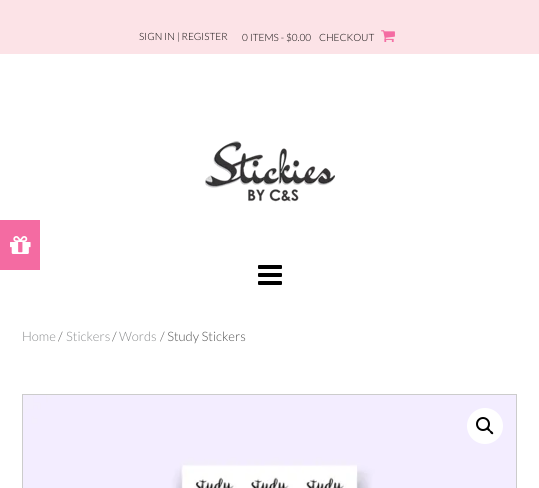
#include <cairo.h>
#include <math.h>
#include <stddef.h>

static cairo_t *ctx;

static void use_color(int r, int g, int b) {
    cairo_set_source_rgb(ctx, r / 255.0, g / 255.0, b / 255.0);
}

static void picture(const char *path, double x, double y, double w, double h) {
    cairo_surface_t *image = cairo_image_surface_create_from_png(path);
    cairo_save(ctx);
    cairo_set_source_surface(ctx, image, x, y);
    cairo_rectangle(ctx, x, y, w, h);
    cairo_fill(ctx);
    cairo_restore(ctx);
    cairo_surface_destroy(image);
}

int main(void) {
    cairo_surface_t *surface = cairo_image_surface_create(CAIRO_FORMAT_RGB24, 539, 488);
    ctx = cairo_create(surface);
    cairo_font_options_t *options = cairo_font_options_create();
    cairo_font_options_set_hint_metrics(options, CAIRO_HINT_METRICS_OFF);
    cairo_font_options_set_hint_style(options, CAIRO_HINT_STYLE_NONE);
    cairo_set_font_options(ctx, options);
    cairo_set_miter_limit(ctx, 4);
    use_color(255, 255, 255);
    cairo_paint(ctx);
    use_color(252, 227, 231);
    cairo_rectangle(ctx, 0, 0, 539, 54);
    cairo_fill(ctx);
    cairo_select_font_face(ctx, "Lato Light", CAIRO_FONT_SLANT_NORMAL, CAIRO_FONT_WEIGHT_NORMAL);
    cairo_set_font_size(ctx, 10);
    use_color(0, 0, 0);
    cairo_move_to(ctx, 139, 40);
    cairo_show_text(ctx, "SIGN IN | REGISTER");
    cairo_move_to(ctx, 242, 41);
    cairo_show_text(ctx, "0 ITEMS - $0.00");
    cairo_move_to(ctx, 319, 41);
    cairo_show_text(ctx, "CHECKOUT");
    picture("img1.png", 381, 30, 14, 12);
    picture("img2.png", 205, 141, 130, 62);
    picture("img3.png", 258, 265, 24, 20);
    use_color(244, 107, 162);
    cairo_rectangle(ctx, 0, 220, 40, 50);
    cairo_fill(ctx);
    picture("img4.png", 10, 236, 21, 18);
    cairo_set_font_size(ctx, 13);
    use_color(138, 140, 142);
    cairo_move_to(ctx, 22, 341);
    cairo_show_text(ctx, "Home");
    use_color(79, 79, 79);
    cairo_move_to(ctx, 58, 341);
    cairo_show_text(ctx, "/");
    use_color(138, 140, 142);
    cairo_move_to(ctx, 66, 341);
    cairo_show_text(ctx, "Stickers");
    use_color(79, 79, 79);
    cairo_move_to(ctx, 112, 341);
    cairo_show_text(ctx, "/");
    use_color(138, 140, 142);
    cairo_move_to(ctx, 119, 341);
    cairo_show_text(ctx, "Words");
    use_color(79, 79, 79);
    cairo_move_to(ctx, 160, 341);
    cairo_show_text(ctx, "/ Study Stickers");
    cairo_rectangle(ctx, 22.5, 394.5, 494, 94);
    use_color(204, 204, 204);
    cairo_set_line_width(ctx, 1);
    cairo_stroke(ctx);
    picture("img5.png", 23, 395, 493, 93);
    use_color(255, 255, 255);
    cairo_arc(ctx, 485, 426, 18, 0, 2 * M_PI);
    cairo_fill(ctx);
    cairo_arc(ctx, 483, 424, 6, 0, 2 * M_PI);
    use_color(0, 0, 0);
    cairo_set_line_width(ctx, 2);
    cairo_stroke(ctx);
    cairo_new_path(ctx);
    cairo_move_to(ctx, 487, 428);
    cairo_curve_to(ctx, 488.5, 427, 490, 429.5, 490.5, 430.5);
    cairo_curve_to(ctx, 491.5, 431, 494, 432.5, 493, 434);
    cairo_curve_to(ctx, 491.5, 435, 490, 432.5, 489.5, 431.5);
    cairo_curve_to(ctx, 488.5, 431, 486, 429.5, 487, 428);
    cairo_close_path(ctx);
    cairo_fill(ctx);
    cairo_surface_write_to_png(surface, "result.png");
    cairo_font_options_destroy(options);
    cairo_destroy(ctx);
    cairo_surface_destroy(surface);
    return 0;
}
